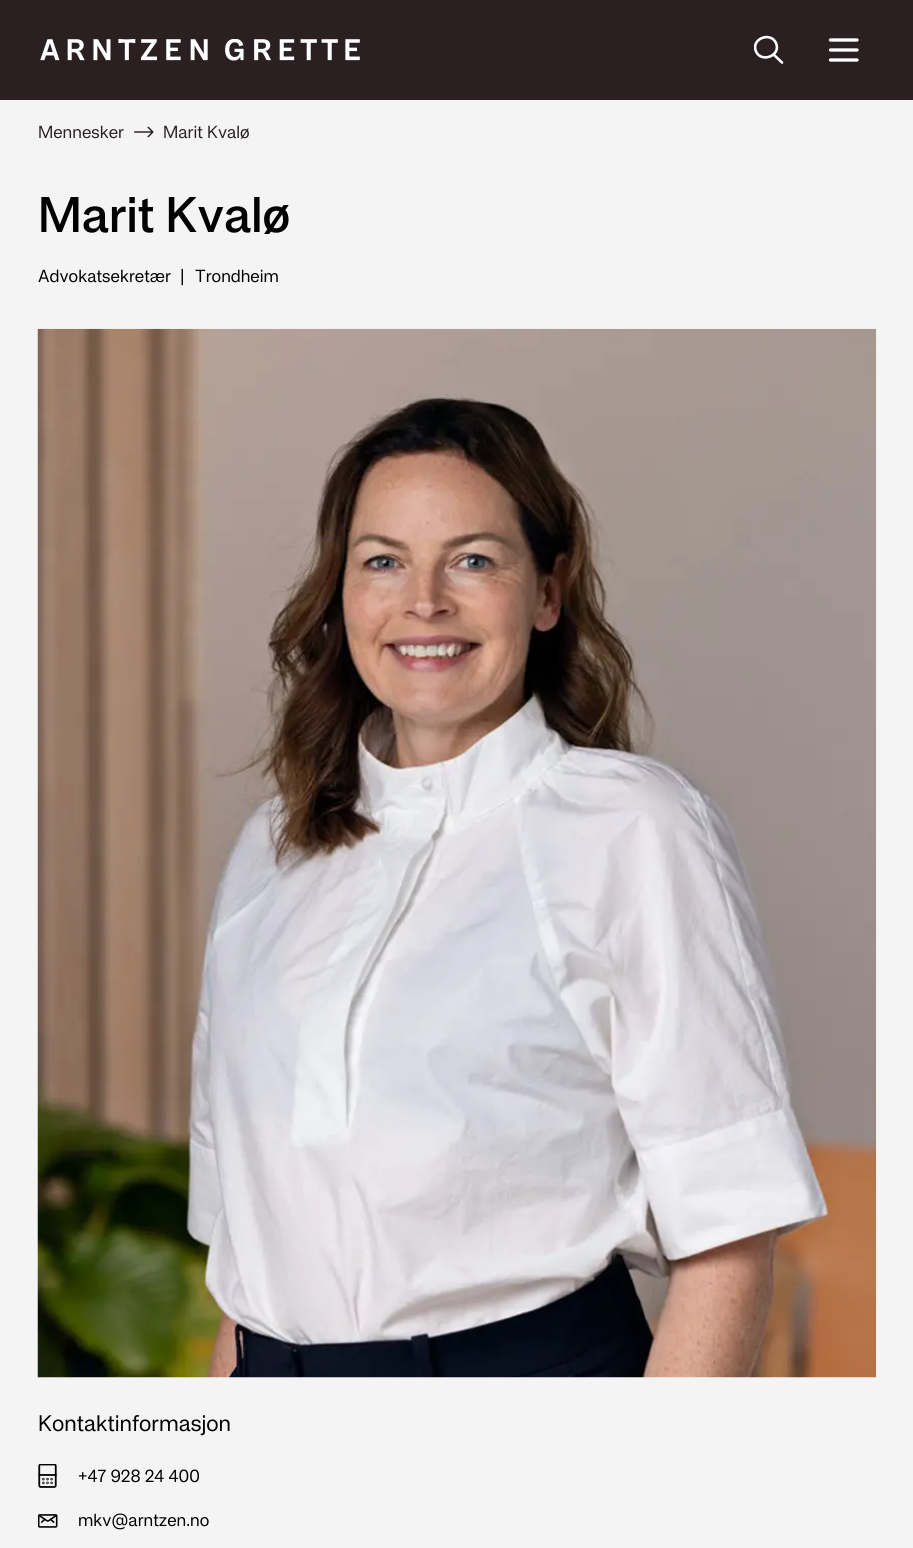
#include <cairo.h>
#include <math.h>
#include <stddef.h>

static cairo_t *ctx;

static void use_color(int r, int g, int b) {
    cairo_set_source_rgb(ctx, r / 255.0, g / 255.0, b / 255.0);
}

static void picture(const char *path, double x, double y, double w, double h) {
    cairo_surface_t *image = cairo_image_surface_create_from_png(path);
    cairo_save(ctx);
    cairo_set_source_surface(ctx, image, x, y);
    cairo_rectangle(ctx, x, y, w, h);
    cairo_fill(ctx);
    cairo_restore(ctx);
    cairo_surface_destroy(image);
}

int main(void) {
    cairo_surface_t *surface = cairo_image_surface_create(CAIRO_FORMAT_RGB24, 913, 1548);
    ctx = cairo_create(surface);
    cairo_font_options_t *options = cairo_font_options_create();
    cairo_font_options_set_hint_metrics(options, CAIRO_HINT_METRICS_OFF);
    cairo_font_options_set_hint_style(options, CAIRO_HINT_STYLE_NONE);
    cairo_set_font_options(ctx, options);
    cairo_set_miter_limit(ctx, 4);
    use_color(244, 244, 244);
    cairo_paint(ctx);
    use_color(42, 31, 33);
    cairo_rectangle(ctx, 0, 0, 913, 100);
    cairo_fill(ctx);
    picture("img1.png", 40, 39, 320, 22);
    cairo_save(ctx);
    cairo_rectangle(ctx, 754, 35, 30, 30);
    cairo_clip(ctx);
    cairo_new_path(ctx);
    cairo_move_to(ctx, 756, 51.5);
    cairo_curve_to(ctx, 761.5, 63.5, 781.5, 55.5, 776, 43);
    cairo_curve_to(ctx, 770.5, 31, 750.5, 39, 756, 51.5);
    cairo_close_path(ctx);
    use_color(255, 255, 255);
    cairo_set_line_width(ctx, 2.6);
    cairo_set_line_cap(ctx, CAIRO_LINE_CAP_ROUND);
    cairo_set_line_join(ctx, CAIRO_LINE_JOIN_ROUND);
    cairo_stroke(ctx);
    cairo_restore(ctx);
    cairo_new_path(ctx);
    cairo_move_to(ctx, 773.5, 54.5);
    cairo_line_to(ctx, 782, 62.5);
    use_color(255, 255, 255);
    cairo_set_line_width(ctx, 2.6);
    cairo_set_line_cap(ctx, CAIRO_LINE_CAP_ROUND);
    cairo_set_line_join(ctx, CAIRO_LINE_JOIN_ROUND);
    cairo_stroke(ctx);
    cairo_new_path(ctx);
    cairo_move_to(ctx, 830.5, 50);
    cairo_line_to(ctx, 857, 50);
    cairo_move_to(ctx, 830.5, 40);
    cairo_line_to(ctx, 857, 40);
    cairo_move_to(ctx, 830.5, 60);
    cairo_line_to(ctx, 857, 60);
    cairo_set_line_width(ctx, 3.3);
    cairo_stroke(ctx);
    cairo_select_font_face(ctx, "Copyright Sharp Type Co", CAIRO_FONT_SLANT_NORMAL, CAIRO_FONT_WEIGHT_NORMAL);
    cairo_set_font_size(ctx, 17.5);
    use_color(42, 31, 33);
    cairo_move_to(ctx, 38, 138);
    cairo_show_text(ctx, "Mennesker");
    picture("img2.png", 134, 126, 20, 12);
    cairo_move_to(ctx, 163, 138);
    cairo_show_text(ctx, "Marit Kvalø");
    cairo_select_font_face(ctx, "Copyright Sharp Type Co Medium", CAIRO_FONT_SLANT_NORMAL, CAIRO_FONT_WEIGHT_NORMAL);
    cairo_set_font_size(ctx, 50);
    use_color(0, 0, 0);
    cairo_move_to(ctx, 38, 232);
    cairo_show_text(ctx, "Marit Kvalø");
    cairo_select_font_face(ctx, "Copyright Sharp Type Co", CAIRO_FONT_SLANT_NORMAL, CAIRO_FONT_WEIGHT_NORMAL);
    cairo_set_font_size(ctx, 17.5);
    cairo_move_to(ctx, 38, 282);
    cairo_show_text(ctx, "Advokatsekretær");
    cairo_move_to(ctx, 180, 282);
    cairo_show_text(ctx, "|");
    cairo_move_to(ctx, 195, 282);
    cairo_show_text(ctx, "Trondheim");
    picture("img3.png", 37, 328, 840, 1050);
    cairo_set_font_size(ctx, 22.5);
    cairo_move_to(ctx, 38, 1431);
    cairo_show_text(ctx, "Kontaktinformasjon");
    picture("img4.png", 38, 1464, 19, 24);
    cairo_set_font_size(ctx, 17.5);
    cairo_move_to(ctx, 78, 1482);
    cairo_show_text(ctx, "+47 928 24 400");
    picture("img5.png", 38, 1514, 20, 14);
    cairo_move_to(ctx, 78, 1526);
    cairo_show_text(ctx, "mkv@arntzen.no");
    cairo_surface_write_to_png(surface, "result.png");
    cairo_font_options_destroy(options);
    cairo_destroy(ctx);
    cairo_surface_destroy(surface);
    return 0;
}
